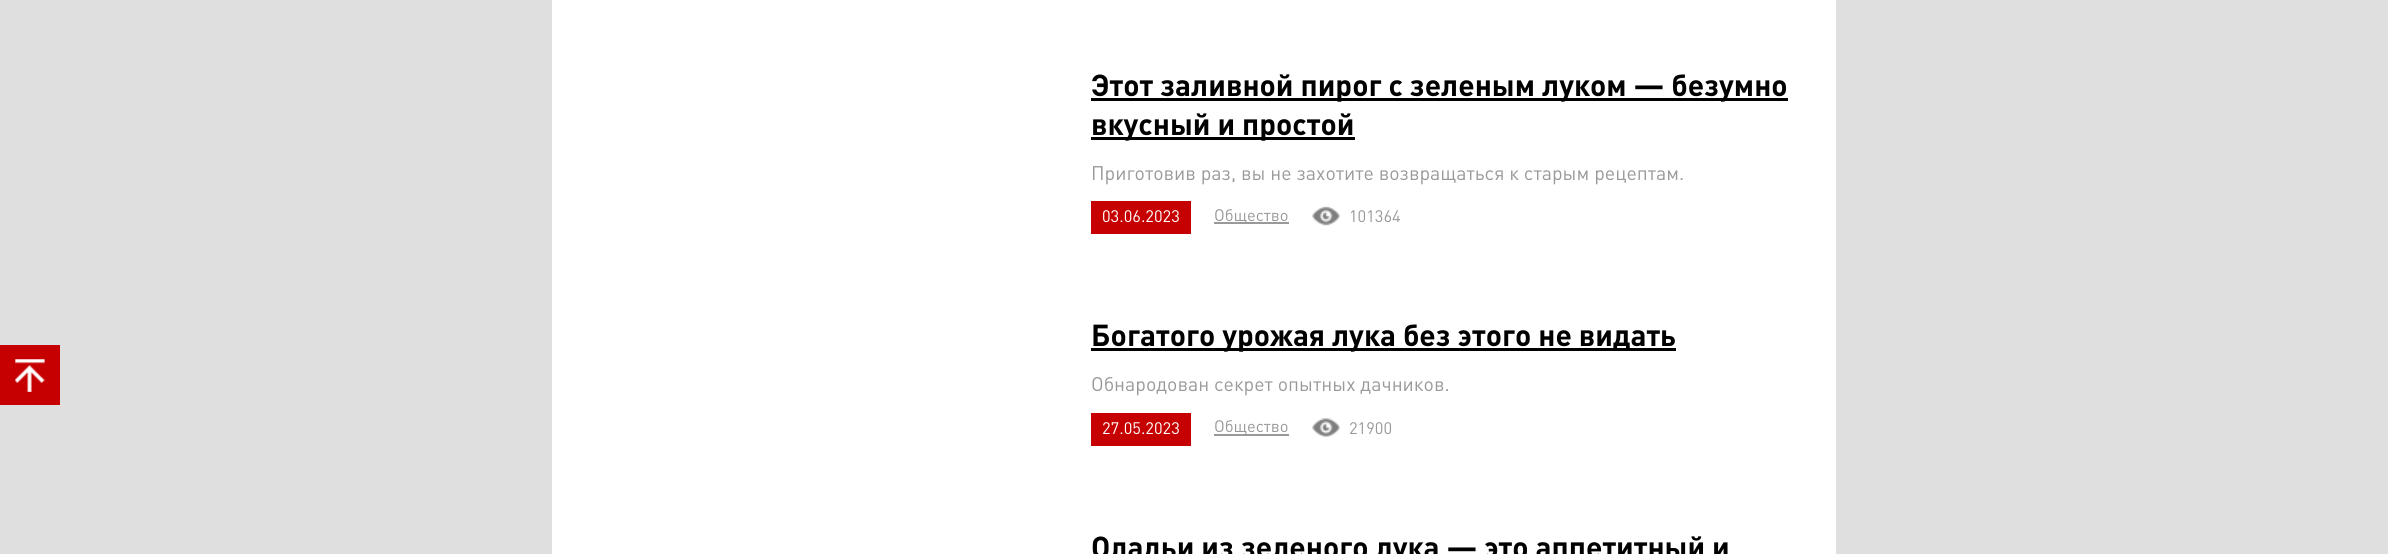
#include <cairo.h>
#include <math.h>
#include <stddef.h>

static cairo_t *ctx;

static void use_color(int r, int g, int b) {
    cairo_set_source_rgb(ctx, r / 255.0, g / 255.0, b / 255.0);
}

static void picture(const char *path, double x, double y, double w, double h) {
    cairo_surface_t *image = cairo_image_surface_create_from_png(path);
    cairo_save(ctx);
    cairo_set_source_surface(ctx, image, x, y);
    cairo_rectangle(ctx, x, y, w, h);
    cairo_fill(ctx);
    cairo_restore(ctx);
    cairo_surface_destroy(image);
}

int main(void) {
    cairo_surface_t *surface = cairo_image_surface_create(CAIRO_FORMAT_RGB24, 2388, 554);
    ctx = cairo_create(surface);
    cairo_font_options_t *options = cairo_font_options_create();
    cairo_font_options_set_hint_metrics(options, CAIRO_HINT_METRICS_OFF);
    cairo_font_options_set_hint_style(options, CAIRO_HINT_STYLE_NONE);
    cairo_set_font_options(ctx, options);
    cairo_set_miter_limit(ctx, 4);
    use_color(223, 223, 223);
    cairo_paint(ctx);
    use_color(198, 0, 0);
    cairo_rectangle(ctx, 0, 345, 60, 60);
    cairo_fill(ctx);
    picture("img1.png", 15, 359, 30, 33);
    use_color(255, 255, 255);
    cairo_rectangle(ctx, 552, 0, 1284, 554);
    cairo_fill(ctx);
    use_color(0, 0, 0);
    cairo_rectangle(ctx, 1091, 98, 697, 3);
    cairo_fill(ctx);
    cairo_select_font_face(ctx, "DIN", CAIRO_FONT_SLANT_NORMAL, CAIRO_FONT_WEIGHT_BOLD);
    cairo_set_font_size(ctx, 30);
    cairo_move_to(ctx, 1091, 96);
    cairo_show_text(ctx, "Этот заливной пирог с зеленым луком — безумно");
    cairo_rectangle(ctx, 1091, 137, 264, 3);
    cairo_fill(ctx);
    cairo_move_to(ctx, 1091, 135);
    cairo_show_text(ctx, "вкусный и простой");
    cairo_select_font_face(ctx, "DIN", CAIRO_FONT_SLANT_NORMAL, CAIRO_FONT_WEIGHT_NORMAL);
    cairo_set_font_size(ctx, 19.5);
    use_color(153, 153, 153);
    cairo_move_to(ctx, 1091, 180);
    cairo_show_text(ctx, "Приготовив раз, вы не захотите возвращаться к старым рецептам.");
    use_color(198, 0, 0);
    cairo_rectangle(ctx, 1091, 201, 100, 33);
    cairo_fill(ctx);
    cairo_set_font_size(ctx, 16.5);
    use_color(255, 255, 255);
    cairo_move_to(ctx, 1102, 222);
    cairo_show_text(ctx, "03.06.2023");
    use_color(153, 153, 153);
    cairo_rectangle(ctx, 1214, 222, 75, 2);
    cairo_fill(ctx);
    cairo_move_to(ctx, 1214, 221);
    cairo_show_text(ctx, "Общество");
    picture("img2.png", 1312, 206, 28, 20);
    cairo_move_to(ctx, 1349, 222);
    cairo_show_text(ctx, "101364");
    use_color(0, 0, 0);
    cairo_rectangle(ctx, 1091, 348, 585, 3);
    cairo_fill(ctx);
    cairo_select_font_face(ctx, "DIN", CAIRO_FONT_SLANT_NORMAL, CAIRO_FONT_WEIGHT_BOLD);
    cairo_set_font_size(ctx, 30);
    cairo_move_to(ctx, 1091, 346);
    cairo_show_text(ctx, "Богатого урожая лука без этого не видать");
    cairo_select_font_face(ctx, "DIN", CAIRO_FONT_SLANT_NORMAL, CAIRO_FONT_WEIGHT_NORMAL);
    cairo_set_font_size(ctx, 19.5);
    use_color(153, 153, 153);
    cairo_move_to(ctx, 1091, 391);
    cairo_show_text(ctx, "Обнародован секрет опытных дачников.");
    use_color(198, 0, 0);
    cairo_rectangle(ctx, 1091, 413, 100, 33);
    cairo_fill(ctx);
    cairo_set_font_size(ctx, 16.5);
    use_color(255, 255, 255);
    cairo_move_to(ctx, 1102, 434);
    cairo_show_text(ctx, "27.05.2023");
    use_color(153, 153, 153);
    cairo_rectangle(ctx, 1214, 434, 75, 2);
    cairo_fill(ctx);
    cairo_move_to(ctx, 1214, 432);
    cairo_show_text(ctx, "Общество");
    picture("img3.png", 1312, 418, 28, 19);
    cairo_move_to(ctx, 1349, 434);
    cairo_show_text(ctx, "21900");
    cairo_select_font_face(ctx, "DIN", CAIRO_FONT_SLANT_NORMAL, CAIRO_FONT_WEIGHT_BOLD);
    cairo_set_font_size(ctx, 30);
    use_color(0, 0, 0);
    cairo_move_to(ctx, 1091, 558);
    cairo_show_text(ctx, "Оладьи из зеленого лука — это аппетитный и");
    cairo_surface_write_to_png(surface, "result.png");
    cairo_font_options_destroy(options);
    cairo_destroy(ctx);
    cairo_surface_destroy(surface);
    return 0;
}
